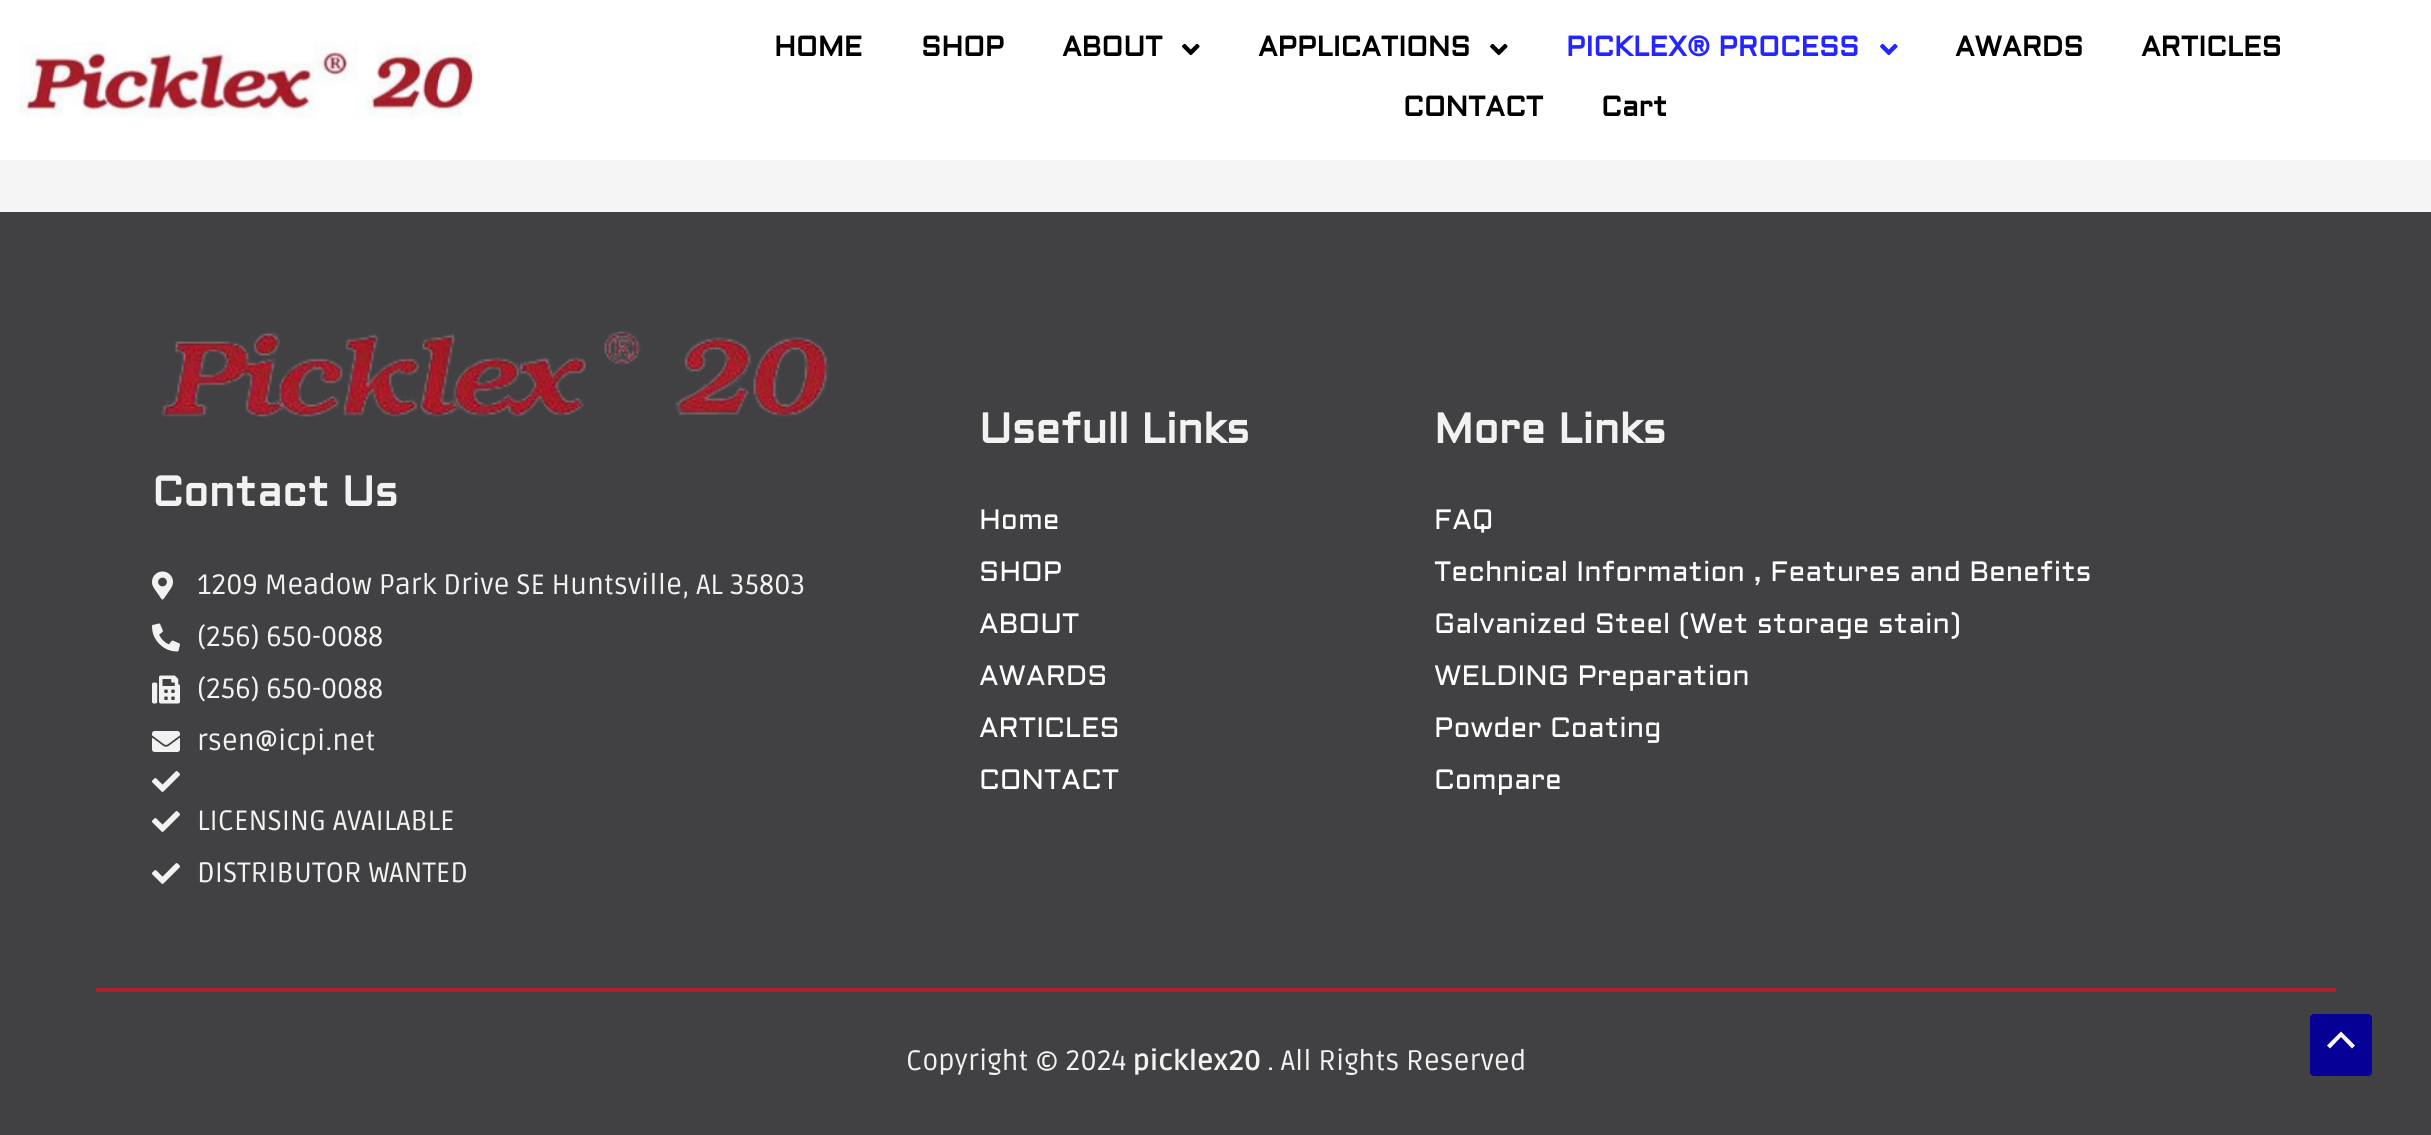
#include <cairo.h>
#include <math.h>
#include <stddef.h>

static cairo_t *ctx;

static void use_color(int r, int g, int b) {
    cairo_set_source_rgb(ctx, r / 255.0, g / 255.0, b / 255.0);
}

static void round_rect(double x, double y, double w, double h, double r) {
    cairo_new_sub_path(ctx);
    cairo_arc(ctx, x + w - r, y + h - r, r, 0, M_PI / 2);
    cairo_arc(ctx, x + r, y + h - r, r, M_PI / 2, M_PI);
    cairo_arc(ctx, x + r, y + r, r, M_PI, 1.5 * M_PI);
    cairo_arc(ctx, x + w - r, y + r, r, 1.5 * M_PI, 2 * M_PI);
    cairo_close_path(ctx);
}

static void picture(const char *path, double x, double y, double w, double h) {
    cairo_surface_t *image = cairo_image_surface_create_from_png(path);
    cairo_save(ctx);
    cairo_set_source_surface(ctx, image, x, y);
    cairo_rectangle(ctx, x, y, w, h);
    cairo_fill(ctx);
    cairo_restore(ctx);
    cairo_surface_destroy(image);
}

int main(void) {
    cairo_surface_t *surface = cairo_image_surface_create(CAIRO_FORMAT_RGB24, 2431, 1135);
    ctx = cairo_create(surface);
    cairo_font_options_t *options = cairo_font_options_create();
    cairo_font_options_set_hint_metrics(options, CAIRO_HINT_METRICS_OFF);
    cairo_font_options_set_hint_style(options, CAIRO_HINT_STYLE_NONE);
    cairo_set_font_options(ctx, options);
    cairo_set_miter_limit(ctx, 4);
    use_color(245, 245, 245);
    cairo_paint(ctx);
    use_color(255, 255, 255);
    cairo_rectangle(ctx, 0, 0, 2431, 160);
    cairo_fill(ctx);
    picture("img1.png", 20, 41, 460, 77);
    cairo_select_font_face(ctx, "Aldrich", CAIRO_FONT_SLANT_NORMAL, CAIRO_FONT_WEIGHT_BOLD);
    cairo_set_font_size(ctx, 28);
    use_color(0, 0, 0);
    cairo_move_to(ctx, 774, 56);
    cairo_show_text(ctx, "HOME");
    cairo_move_to(ctx, 921, 56);
    cairo_show_text(ctx, "SHOP");
    cairo_move_to(ctx, 1062, 56);
    cairo_show_text(ctx, "ABOUT");
    picture("img2.png", 1182, 43, 18, 13);
    cairo_move_to(ctx, 1258, 56);
    cairo_show_text(ctx, "APPLICATIONS");
    picture("img2.png", 1490, 43, 18, 13);
    use_color(37, 37, 255);
    cairo_move_to(ctx, 1566, 56);
    cairo_show_text(ctx, "PICKLEX® PROCESS");
    picture("img3.png", 1880, 43, 18, 13);
    use_color(0, 0, 0);
    cairo_move_to(ctx, 1955, 56);
    cairo_show_text(ctx, "AWARDS");
    cairo_move_to(ctx, 2141, 56);
    cairo_show_text(ctx, "ARTICLES");
    cairo_move_to(ctx, 1403, 116);
    cairo_show_text(ctx, "CONTACT");
    cairo_move_to(ctx, 1601, 116);
    cairo_show_text(ctx, "Cart");
    use_color(65, 65, 67);
    cairo_rectangle(ctx, 0, 212, 2431, 923);
    cairo_fill(ctx);
    picture("img4.png", 161, 331, 668, 86);
    cairo_set_font_size(ctx, 42);
    use_color(242, 242, 242);
    cairo_move_to(ctx, 152, 506);
    cairo_show_text(ctx, "Contact Us");
    picture("img5.png", 152, 571, 21, 29);
    cairo_select_font_face(ctx, "Ruda", CAIRO_FONT_SLANT_NORMAL, CAIRO_FONT_WEIGHT_NORMAL);
    cairo_set_font_size(ctx, 28);
    cairo_move_to(ctx, 197, 594);
    cairo_show_text(ctx, "1209 Meadow Park Drive SE Huntsville, AL 35803");
    picture("img6.png", 152, 623, 28, 29);
    cairo_move_to(ctx, 197, 646);
    cairo_show_text(ctx, "(256) 650-0088");
    picture("img7.png", 152, 675, 28, 29);
    cairo_move_to(ctx, 197, 698);
    cairo_show_text(ctx, "(256) 650-0088");
    picture("img8.png", 152, 731, 28, 21);
    cairo_move_to(ctx, 197, 750);
    cairo_show_text(ctx, "rsen@icpi.net");
    picture("img9.png", 152, 771, 28, 21);
    picture("img9.png", 152, 811, 28, 21);
    cairo_move_to(ctx, 197, 830);
    cairo_show_text(ctx, "LICENSING AVAILABLE");
    picture("img9.png", 152, 863, 28, 21);
    cairo_move_to(ctx, 197, 882);
    cairo_show_text(ctx, "DISTRIBUTOR WANTED");
    cairo_select_font_face(ctx, "Aldrich", CAIRO_FONT_SLANT_NORMAL, CAIRO_FONT_WEIGHT_BOLD);
    cairo_set_font_size(ctx, 42);
    cairo_move_to(ctx, 979, 443);
    cairo_show_text(ctx, "Usefull Links");
    cairo_select_font_face(ctx, "Aldrich", CAIRO_FONT_SLANT_NORMAL, CAIRO_FONT_WEIGHT_NORMAL);
    cairo_set_font_size(ctx, 28);
    use_color(255, 255, 255);
    cairo_move_to(ctx, 979, 529);
    cairo_show_text(ctx, "Home");
    cairo_move_to(ctx, 979, 581);
    cairo_show_text(ctx, "SHOP");
    cairo_move_to(ctx, 979, 633);
    cairo_show_text(ctx, "ABOUT");
    cairo_move_to(ctx, 979, 685);
    cairo_show_text(ctx, "AWARDS");
    cairo_move_to(ctx, 979, 737);
    cairo_show_text(ctx, "ARTICLES");
    cairo_move_to(ctx, 979, 789);
    cairo_show_text(ctx, "CONTACT");
    cairo_select_font_face(ctx, "Aldrich", CAIRO_FONT_SLANT_NORMAL, CAIRO_FONT_WEIGHT_BOLD);
    cairo_set_font_size(ctx, 42);
    use_color(242, 242, 242);
    cairo_move_to(ctx, 1434, 443);
    cairo_show_text(ctx, "More Links");
    cairo_select_font_face(ctx, "Aldrich", CAIRO_FONT_SLANT_NORMAL, CAIRO_FONT_WEIGHT_NORMAL);
    cairo_set_font_size(ctx, 28);
    use_color(255, 255, 255);
    cairo_move_to(ctx, 1434, 529);
    cairo_show_text(ctx, "FAQ");
    cairo_move_to(ctx, 1434, 581);
    cairo_show_text(ctx, "Technical Information , Features and Benefits");
    cairo_move_to(ctx, 1434, 633);
    cairo_show_text(ctx, "Galvanized Steel (Wet storage stain)");
    cairo_move_to(ctx, 1434, 685);
    cairo_show_text(ctx, "WELDING Preparation");
    cairo_move_to(ctx, 1434, 737);
    cairo_show_text(ctx, "Powder Coating");
    cairo_move_to(ctx, 1434, 789);
    cairo_show_text(ctx, "Compare");
    use_color(179, 32, 45);
    cairo_rectangle(ctx, 96, 988, 2240, 4);
    cairo_fill(ctx);
    cairo_select_font_face(ctx, "Ruda", CAIRO_FONT_SLANT_NORMAL, CAIRO_FONT_WEIGHT_NORMAL);
    use_color(242, 242, 242);
    cairo_move_to(ctx, 906, 1070);
    cairo_show_text(ctx, "Copyright © 2024");
    cairo_select_font_face(ctx, "Ruda", CAIRO_FONT_SLANT_NORMAL, CAIRO_FONT_WEIGHT_BOLD);
    cairo_move_to(ctx, 1133, 1070);
    cairo_show_text(ctx, "picklex20");
    cairo_select_font_face(ctx, "Ruda", CAIRO_FONT_SLANT_NORMAL, CAIRO_FONT_WEIGHT_NORMAL);
    cairo_move_to(ctx, 1267, 1070);
    cairo_show_text(ctx, ". All Rights Reserved");
    use_color(6, 0, 151);
    round_rect(2310, 1014, 62, 62, 4);
    cairo_fill(ctx);
    use_color(255, 255, 255);
    cairo_new_path(ctx);
    cairo_move_to(ctx, 2355, 1045.5);
    cairo_line_to(ctx, 2341, 1031.5);
    cairo_line_to(ctx, 2327, 1045.5);
    cairo_line_to(ctx, 2330, 1048.5);
    cairo_line_to(ctx, 2341, 1037);
    cairo_line_to(ctx, 2352, 1048.5);
    cairo_close_path(ctx);
    cairo_fill(ctx);
    cairo_surface_write_to_png(surface, "result.png");
    cairo_font_options_destroy(options);
    cairo_destroy(ctx);
    cairo_surface_destroy(surface);
    return 0;
}
